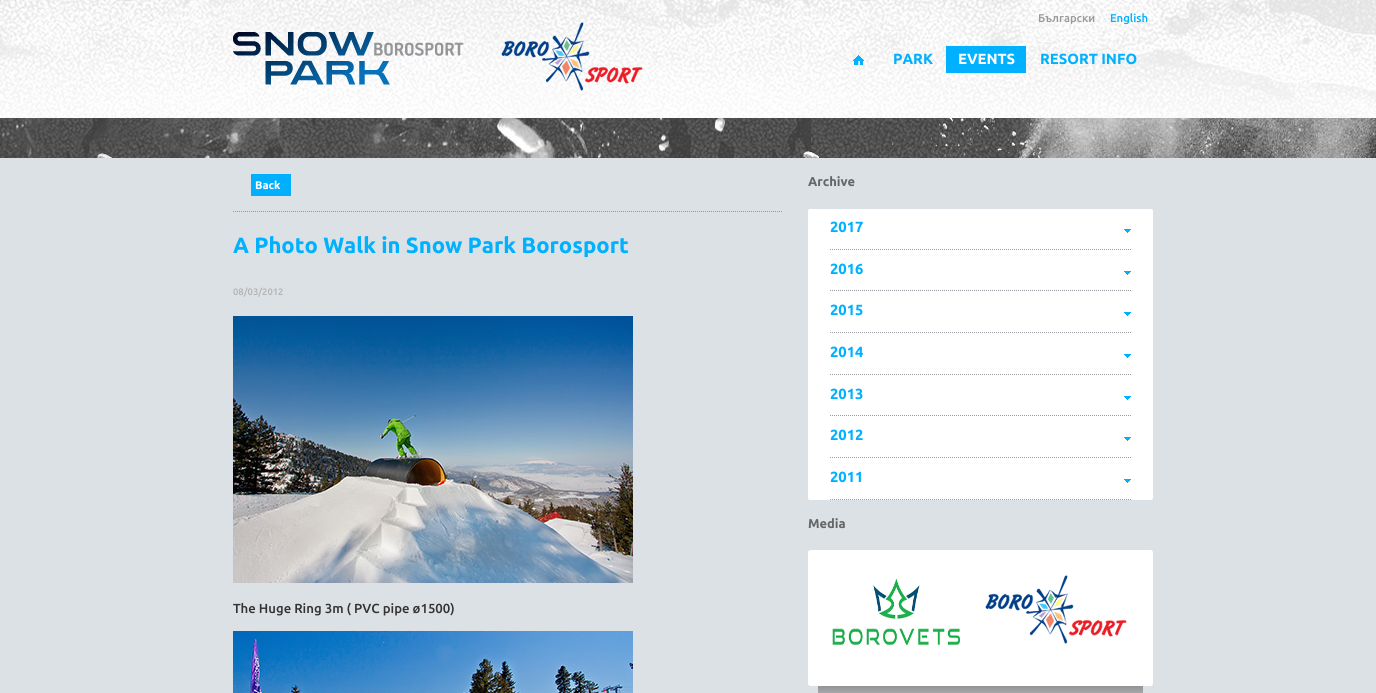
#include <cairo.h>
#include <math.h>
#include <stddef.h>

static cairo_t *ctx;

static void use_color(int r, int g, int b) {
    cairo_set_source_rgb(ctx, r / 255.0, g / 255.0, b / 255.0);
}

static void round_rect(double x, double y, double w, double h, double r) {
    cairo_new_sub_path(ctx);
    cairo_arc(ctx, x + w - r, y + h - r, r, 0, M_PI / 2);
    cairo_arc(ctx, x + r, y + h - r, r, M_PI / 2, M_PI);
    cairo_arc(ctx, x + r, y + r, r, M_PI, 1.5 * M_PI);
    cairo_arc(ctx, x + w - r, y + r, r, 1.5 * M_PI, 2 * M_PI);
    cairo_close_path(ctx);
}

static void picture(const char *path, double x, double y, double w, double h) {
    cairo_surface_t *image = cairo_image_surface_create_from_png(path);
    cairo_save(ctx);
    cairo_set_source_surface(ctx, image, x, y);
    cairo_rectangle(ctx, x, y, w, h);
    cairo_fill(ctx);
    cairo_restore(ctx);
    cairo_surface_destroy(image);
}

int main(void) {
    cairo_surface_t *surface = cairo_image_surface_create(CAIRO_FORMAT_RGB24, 1376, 693);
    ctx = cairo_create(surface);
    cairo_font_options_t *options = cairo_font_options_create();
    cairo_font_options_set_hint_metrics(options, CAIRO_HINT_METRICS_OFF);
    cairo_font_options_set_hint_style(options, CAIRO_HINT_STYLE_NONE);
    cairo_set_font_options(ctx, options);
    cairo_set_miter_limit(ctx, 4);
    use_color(220, 225, 229);
    cairo_paint(ctx);
    picture("img1.png", 0, 0, 1376, 118);
    cairo_select_font_face(ctx, "Ubuntu Medium", CAIRO_FONT_SLANT_NORMAL, CAIRO_FONT_WEIGHT_NORMAL);
    cairo_set_font_size(ctx, 12);
    use_color(153, 153, 153);
    cairo_move_to(ctx, 1038, 22);
    cairo_show_text(ctx, "Български");
    use_color(0, 177, 255);
    cairo_move_to(ctx, 1110, 22);
    cairo_show_text(ctx, "English");
    picture("img2.png", 233, 32, 231, 53);
    picture("img3.png", 501, 22, 142, 69);
    picture("img4.png", 853, 55, 11, 10);
    cairo_select_font_face(ctx, "Ubuntu", CAIRO_FONT_SLANT_NORMAL, CAIRO_FONT_WEIGHT_BOLD);
    cairo_set_font_size(ctx, 16);
    cairo_move_to(ctx, 893, 64);
    cairo_show_text(ctx, "PARK");
    cairo_rectangle(ctx, 946, 46, 80, 27);
    cairo_fill(ctx);
    use_color(255, 255, 255);
    cairo_move_to(ctx, 958, 64);
    cairo_show_text(ctx, "EVENTS");
    use_color(0, 177, 255);
    cairo_move_to(ctx, 1040, 64);
    cairo_show_text(ctx, "RESORT INFO");
    picture("img5.png", 0, 118, 1376, 40);
    use_color(0, 176, 255);
    cairo_rectangle(ctx, 251, 174, 40, 22);
    cairo_fill(ctx);
    cairo_set_font_size(ctx, 12);
    use_color(255, 255, 255);
    cairo_move_to(ctx, 255, 189);
    cairo_show_text(ctx, "Back");
    cairo_new_path(ctx);
    cairo_move_to(ctx, 233, 211.5);
    cairo_line_to(ctx, 783, 211.5);
    use_color(151, 154, 159);
    cairo_set_line_width(ctx, 1);
    cairo_set_dash(ctx, (double[]){1, 1}, 2, 0);
    cairo_stroke(ctx);
    cairo_set_font_size(ctx, 24);
    use_color(0, 177, 255);
    cairo_move_to(ctx, 233, 253);
    cairo_show_text(ctx, "A Photo Walk in Snow Park Borosport");
    cairo_select_font_face(ctx, "Ubuntu Medium", CAIRO_FONT_SLANT_NORMAL, CAIRO_FONT_WEIGHT_NORMAL);
    cairo_set_font_size(ctx, 10);
    use_color(179, 179, 179);
    cairo_move_to(ctx, 233, 295);
    cairo_show_text(ctx, "08/03/2012");
    picture("img6.png", 233, 316, 400, 267);
    cairo_set_font_size(ctx, 14);
    use_color(52, 51, 49);
    cairo_move_to(ctx, 233, 613);
    cairo_show_text(ctx, "The Huge Ring 3m ( PVC pipe ø1500)");
    picture("img7.png", 233, 631, 400, 62);
    cairo_select_font_face(ctx, "Ubuntu", CAIRO_FONT_SLANT_NORMAL, CAIRO_FONT_WEIGHT_BOLD);
    use_color(102, 102, 102);
    cairo_move_to(ctx, 808, 186);
    cairo_show_text(ctx, "Archive");
    use_color(255, 255, 255);
    round_rect(808, 209, 345, 291, 2);
    cairo_fill(ctx);
    picture("img8.png", 1124, 229, 7, 4);
    cairo_new_path(ctx);
    cairo_move_to(ctx, 830, 249.5);
    cairo_line_to(ctx, 1131, 249.5);
    use_color(151, 154, 159);
    cairo_stroke(ctx);
    cairo_set_font_size(ctx, 16);
    use_color(0, 177, 255);
    cairo_move_to(ctx, 830, 232);
    cairo_show_text(ctx, "2017");
    picture("img8.png", 1124, 271, 7, 4);
    cairo_new_path(ctx);
    cairo_move_to(ctx, 830, 290.5);
    cairo_line_to(ctx, 1131, 290.5);
    use_color(151, 154, 159);
    cairo_stroke(ctx);
    use_color(0, 177, 255);
    cairo_move_to(ctx, 830, 274);
    cairo_show_text(ctx, "2016");
    picture("img8.png", 1124, 312, 7, 4);
    cairo_new_path(ctx);
    cairo_move_to(ctx, 830, 332.5);
    cairo_line_to(ctx, 1131, 332.5);
    use_color(151, 154, 159);
    cairo_stroke(ctx);
    use_color(0, 177, 255);
    cairo_move_to(ctx, 830, 315);
    cairo_show_text(ctx, "2015");
    picture("img8.png", 1124, 354, 7, 4);
    cairo_new_path(ctx);
    cairo_move_to(ctx, 830, 374.5);
    cairo_line_to(ctx, 1131, 374.5);
    use_color(151, 154, 159);
    cairo_stroke(ctx);
    use_color(0, 177, 255);
    cairo_move_to(ctx, 830, 357);
    cairo_show_text(ctx, "2014");
    picture("img8.png", 1124, 396, 7, 4);
    cairo_new_path(ctx);
    cairo_move_to(ctx, 830, 415.5);
    cairo_line_to(ctx, 1131, 415.5);
    use_color(151, 154, 159);
    cairo_stroke(ctx);
    use_color(0, 177, 255);
    cairo_move_to(ctx, 830, 399);
    cairo_show_text(ctx, "2013");
    picture("img8.png", 1124, 437, 7, 4);
    cairo_new_path(ctx);
    cairo_move_to(ctx, 830, 457.5);
    cairo_line_to(ctx, 1131, 457.5);
    use_color(151, 154, 159);
    cairo_stroke(ctx);
    use_color(0, 177, 255);
    cairo_move_to(ctx, 830, 440);
    cairo_show_text(ctx, "2012");
    picture("img8.png", 1124, 479, 7, 4);
    cairo_new_path(ctx);
    cairo_move_to(ctx, 830, 499.5);
    cairo_line_to(ctx, 1131, 499.5);
    use_color(151, 154, 159);
    cairo_stroke(ctx);
    use_color(0, 177, 255);
    cairo_move_to(ctx, 830, 482);
    cairo_show_text(ctx, "2011");
    cairo_set_font_size(ctx, 14);
    use_color(102, 102, 102);
    cairo_move_to(ctx, 808, 528);
    cairo_show_text(ctx, "Media");
    picture("img9.png", 808, 550, 345, 143);
    picture("img10.png", 832, 578, 129, 69);
    picture("img11.png", 985, 575, 142, 69);
    cairo_surface_write_to_png(surface, "result.png");
    cairo_font_options_destroy(options);
    cairo_destroy(ctx);
    cairo_surface_destroy(surface);
    return 0;
}
